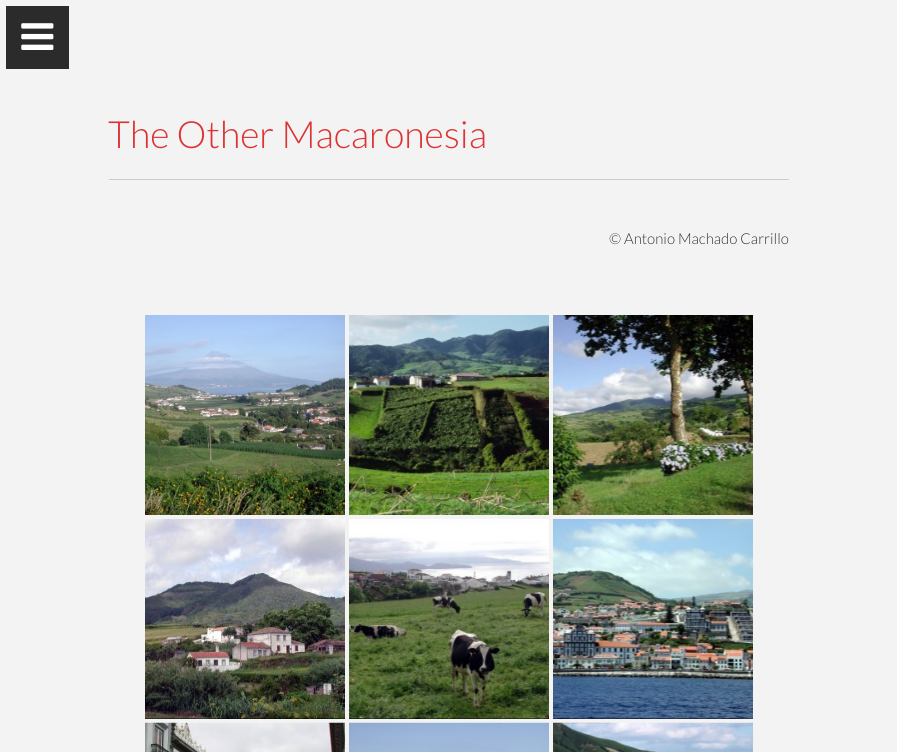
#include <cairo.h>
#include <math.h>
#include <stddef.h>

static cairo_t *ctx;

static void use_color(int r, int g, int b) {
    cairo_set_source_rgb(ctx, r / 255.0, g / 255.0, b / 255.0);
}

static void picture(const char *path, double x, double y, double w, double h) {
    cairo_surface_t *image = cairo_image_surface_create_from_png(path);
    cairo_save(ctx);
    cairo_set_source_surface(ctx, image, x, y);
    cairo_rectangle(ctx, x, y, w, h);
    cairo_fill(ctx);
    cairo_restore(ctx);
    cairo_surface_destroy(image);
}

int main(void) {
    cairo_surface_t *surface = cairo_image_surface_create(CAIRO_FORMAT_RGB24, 897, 752);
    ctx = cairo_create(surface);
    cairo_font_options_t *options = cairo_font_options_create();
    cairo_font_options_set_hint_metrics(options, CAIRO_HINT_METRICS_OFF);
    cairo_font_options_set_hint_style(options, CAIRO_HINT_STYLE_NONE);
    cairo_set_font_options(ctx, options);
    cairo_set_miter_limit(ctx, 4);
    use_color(243, 243, 243);
    cairo_paint(ctx);
    use_color(43, 43, 43);
    cairo_rectangle(ctx, 6, 6, 63, 63);
    cairo_fill(ctx);
    picture("img1.png", 21, 23, 33, 27);
    use_color(204, 204, 204);
    cairo_rectangle(ctx, 109, 179, 680, 1);
    cairo_fill(ctx);
    cairo_select_font_face(ctx, "Lato Light", CAIRO_FONT_SLANT_NORMAL, CAIRO_FONT_WEIGHT_NORMAL);
    cairo_set_font_size(ctx, 37.5);
    use_color(221, 51, 51);
    cairo_move_to(ctx, 108, 148);
    cairo_show_text(ctx, "The Other Macaronesia");
    cairo_set_font_size(ctx, 15);
    use_color(51, 51, 51);
    cairo_move_to(ctx, 609, 244);
    cairo_show_text(ctx, "© Antonio Machado Carrillo");
    picture("img2.png", 145, 315, 200, 200);
    picture("img3.png", 349, 315, 200, 200);
    picture("img4.png", 553, 315, 200, 200);
    use_color(0, 0, 0);
    cairo_rectangle(ctx, 145, 718, 200, 1);
    cairo_fill(ctx);
    picture("img5.png", 145, 518, 200, 201);
    cairo_rectangle(ctx, 349, 718, 200, 1);
    cairo_fill(ctx);
    picture("img6.png", 349, 519, 200, 200);
    cairo_rectangle(ctx, 553, 718, 200, 1);
    cairo_fill(ctx);
    picture("img7.png", 553, 518, 200, 201);
    picture("img8.png", 145, 722, 200, 30);
    picture("img9.png", 349, 722, 200, 30);
    picture("img10.png", 553, 722, 200, 30);
    cairo_surface_write_to_png(surface, "result.png");
    cairo_font_options_destroy(options);
    cairo_destroy(ctx);
    cairo_surface_destroy(surface);
    return 0;
}
